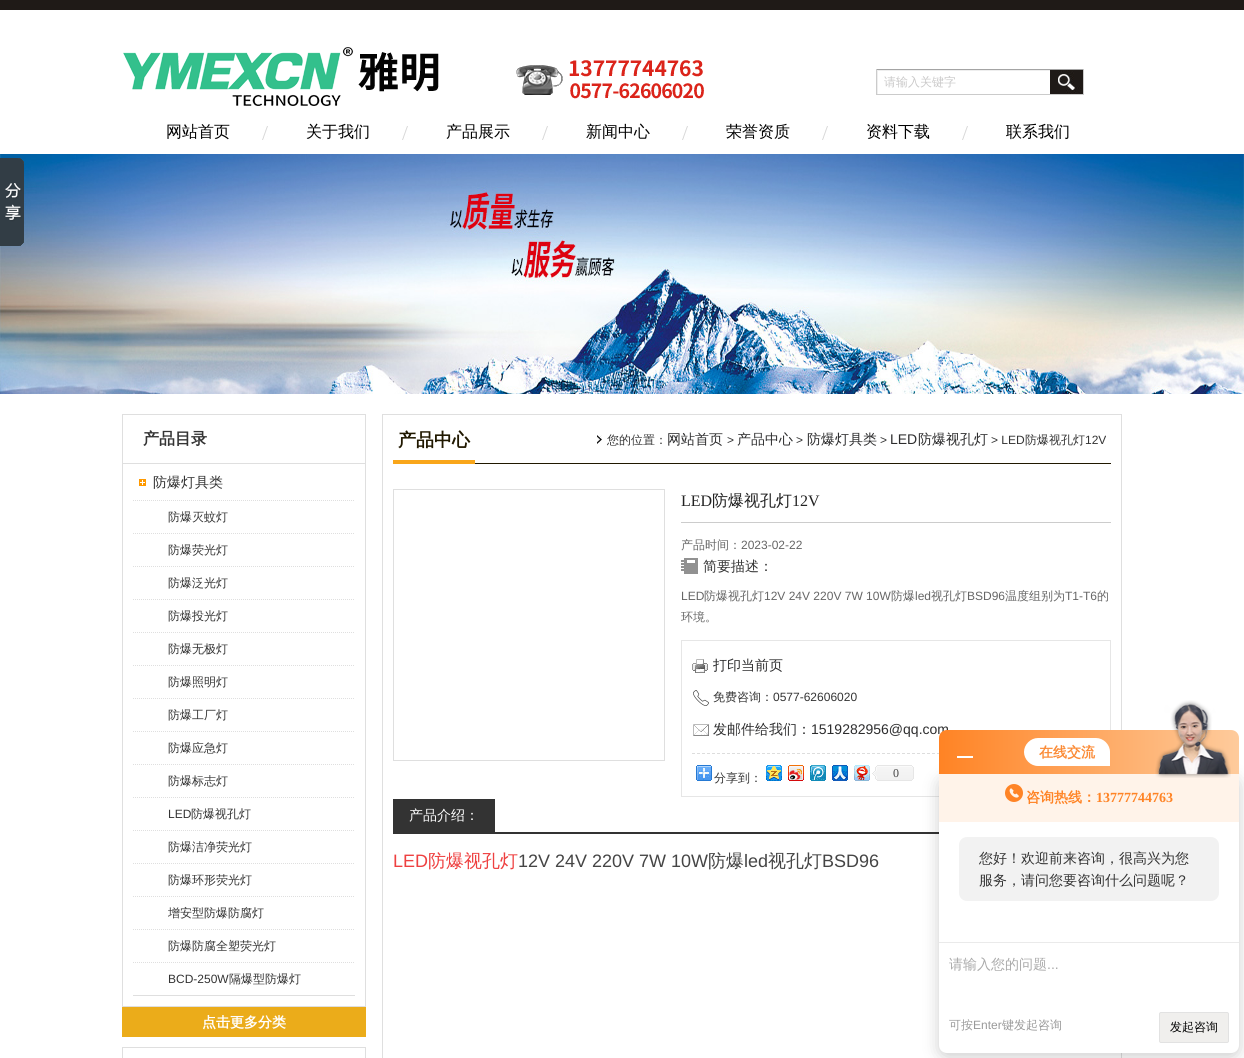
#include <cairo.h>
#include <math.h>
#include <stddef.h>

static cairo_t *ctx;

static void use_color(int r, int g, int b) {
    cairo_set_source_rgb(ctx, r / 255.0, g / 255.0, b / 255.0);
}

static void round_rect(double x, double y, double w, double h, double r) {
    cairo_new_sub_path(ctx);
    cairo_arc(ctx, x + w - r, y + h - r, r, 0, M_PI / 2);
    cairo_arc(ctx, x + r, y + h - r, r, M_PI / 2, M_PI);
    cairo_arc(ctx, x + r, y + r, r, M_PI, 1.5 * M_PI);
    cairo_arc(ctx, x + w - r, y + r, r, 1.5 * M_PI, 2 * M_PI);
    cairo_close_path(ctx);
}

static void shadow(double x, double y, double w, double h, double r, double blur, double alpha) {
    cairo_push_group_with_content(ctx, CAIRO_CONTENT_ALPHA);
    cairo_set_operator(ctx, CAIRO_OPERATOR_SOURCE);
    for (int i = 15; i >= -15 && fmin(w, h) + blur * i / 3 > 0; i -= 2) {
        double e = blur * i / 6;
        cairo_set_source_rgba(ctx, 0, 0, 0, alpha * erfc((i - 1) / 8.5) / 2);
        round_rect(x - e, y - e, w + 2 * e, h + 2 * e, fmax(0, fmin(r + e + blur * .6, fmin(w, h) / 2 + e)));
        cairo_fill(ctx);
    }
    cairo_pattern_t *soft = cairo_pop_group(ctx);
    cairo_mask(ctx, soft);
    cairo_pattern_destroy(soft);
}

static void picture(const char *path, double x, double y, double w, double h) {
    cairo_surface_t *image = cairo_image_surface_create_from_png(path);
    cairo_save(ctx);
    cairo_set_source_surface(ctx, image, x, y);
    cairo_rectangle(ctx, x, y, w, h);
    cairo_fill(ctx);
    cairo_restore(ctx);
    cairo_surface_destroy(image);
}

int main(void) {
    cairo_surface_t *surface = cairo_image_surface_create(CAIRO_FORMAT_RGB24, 1244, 1058);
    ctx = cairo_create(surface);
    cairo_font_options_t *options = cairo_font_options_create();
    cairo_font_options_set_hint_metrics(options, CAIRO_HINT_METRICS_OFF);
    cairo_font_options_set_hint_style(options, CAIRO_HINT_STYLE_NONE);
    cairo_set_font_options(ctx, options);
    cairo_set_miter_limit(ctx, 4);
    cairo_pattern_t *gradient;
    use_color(255, 255, 255);
    cairo_paint(ctx);
    use_color(31, 26, 23);
    cairo_rectangle(ctx, 0, 0, 1244, 10);
    cairo_fill(ctx);
    picture("img1.png", 123, 47, 581, 59);
    cairo_save(ctx);
    cairo_rectangle(ctx, 877, 70, 206, 24);
    cairo_clip(ctx);
    use_color(238, 238, 238);
    cairo_set_fill_rule(ctx, CAIRO_FILL_RULE_EVEN_ODD);
    cairo_new_path(ctx);
    cairo_move_to(ctx, 778, -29);
    cairo_line_to(ctx, 1182, -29);
    cairo_line_to(ctx, 1182, 193);
    cairo_line_to(ctx, 778, 193);
    cairo_close_path(ctx);
    cairo_move_to(ctx, 878, 71);
    cairo_line_to(ctx, 1084, 71);
    cairo_line_to(ctx, 1084, 95);
    cairo_line_to(ctx, 878, 95);
    cairo_close_path(ctx);
    cairo_fill(ctx);
    cairo_restore(ctx);
    use_color(164, 164, 164);
    cairo_rectangle(ctx, 876, 69, 208, 1);
    cairo_fill(ctx);
    use_color(203, 203, 203);
    cairo_rectangle(ctx, 1083, 69, 1, 26);
    cairo_fill(ctx);
    cairo_rectangle(ctx, 876, 94, 208, 1);
    cairo_fill(ctx);
    cairo_rectangle(ctx, 876, 69, 1, 26);
    cairo_fill(ctx);
    cairo_select_font_face(ctx, "WenQuanYi Zen Hei Medium", CAIRO_FONT_SLANT_NORMAL, CAIRO_FONT_WEIGHT_NORMAL);
    cairo_set_font_size(ctx, 12);
    use_color(202, 201, 201);
    cairo_move_to(ctx, 884, 86);
    cairo_show_text(ctx, "请输入关键字");
    picture("img2.png", 1050, 70, 33, 24);
    cairo_set_font_size(ctx, 16);
    use_color(1, 1, 1);
    cairo_move_to(ctx, 166, 137);
    cairo_show_text(ctx, "网站首页");
    picture("img3.png", 262, 126, 6, 14);
    cairo_move_to(ctx, 306, 137);
    cairo_show_text(ctx, "关于我们");
    picture("img3.png", 402, 126, 6, 14);
    cairo_move_to(ctx, 446, 137);
    cairo_show_text(ctx, "产品展示");
    picture("img3.png", 542, 126, 6, 14);
    cairo_move_to(ctx, 586, 137);
    cairo_show_text(ctx, "新闻中心");
    picture("img3.png", 682, 126, 6, 14);
    cairo_move_to(ctx, 726, 137);
    cairo_show_text(ctx, "荣誉资质");
    picture("img3.png", 822, 126, 6, 14);
    cairo_move_to(ctx, 866, 137);
    cairo_show_text(ctx, "资料下载");
    picture("img3.png", 962, 126, 6, 14);
    cairo_move_to(ctx, 1006, 137);
    cairo_show_text(ctx, "联系我们");
    picture("img4.png", 0, 154, 1244, 240);
    picture("img5.png", 0, 158, 24, 88);
    cairo_rectangle(ctx, 122.5, 414.5, 243, 592);
    use_color(223, 223, 223);
    cairo_set_line_width(ctx, 1);
    cairo_stroke(ctx);
    cairo_select_font_face(ctx, "WenQuanYi Zen Hei", CAIRO_FONT_SLANT_NORMAL, CAIRO_FONT_WEIGHT_BOLD);
    use_color(52, 52, 52);
    cairo_move_to(ctx, 143, 444);
    cairo_show_text(ctx, "产品目录");
    use_color(223, 223, 223);
    cairo_rectangle(ctx, 123, 463, 242, 1);
    cairo_fill(ctx);
    cairo_rectangle(ctx, 133, 995, 222, 1);
    cairo_fill(ctx);
    picture("img6.png", 139, 479, 7, 7);
    cairo_select_font_face(ctx, "WenQuanYi Zen Hei Medium", CAIRO_FONT_SLANT_NORMAL, CAIRO_FONT_WEIGHT_NORMAL);
    cairo_set_font_size(ctx, 14);
    use_color(52, 52, 52);
    cairo_move_to(ctx, 153, 487);
    cairo_show_text(ctx, "防爆灯具类");
    cairo_new_path(ctx);
    cairo_move_to(ctx, 133, 500.5);
    cairo_line_to(ctx, 355, 500.5);
    use_color(223, 223, 223);
    cairo_set_dash(ctx, (double[]){1, 1}, 2, 0);
    cairo_stroke(ctx);
    cairo_set_font_size(ctx, 12);
    use_color(52, 52, 52);
    cairo_move_to(ctx, 168, 521);
    cairo_show_text(ctx, "防爆灭蚊灯");
    cairo_new_path(ctx);
    cairo_move_to(ctx, 133, 533.5);
    cairo_line_to(ctx, 355, 533.5);
    use_color(223, 223, 223);
    cairo_stroke(ctx);
    use_color(52, 52, 52);
    cairo_move_to(ctx, 168, 554);
    cairo_show_text(ctx, "防爆荧光灯");
    cairo_new_path(ctx);
    cairo_move_to(ctx, 133, 566.5);
    cairo_line_to(ctx, 355, 566.5);
    use_color(223, 223, 223);
    cairo_stroke(ctx);
    use_color(52, 52, 52);
    cairo_move_to(ctx, 168, 587);
    cairo_show_text(ctx, "防爆泛光灯");
    cairo_new_path(ctx);
    cairo_move_to(ctx, 133, 599.5);
    cairo_line_to(ctx, 355, 599.5);
    use_color(223, 223, 223);
    cairo_stroke(ctx);
    use_color(52, 52, 52);
    cairo_move_to(ctx, 168, 620);
    cairo_show_text(ctx, "防爆投光灯");
    cairo_new_path(ctx);
    cairo_move_to(ctx, 133, 632.5);
    cairo_line_to(ctx, 355, 632.5);
    use_color(223, 223, 223);
    cairo_stroke(ctx);
    use_color(52, 52, 52);
    cairo_move_to(ctx, 168, 653);
    cairo_show_text(ctx, "防爆无极灯");
    cairo_new_path(ctx);
    cairo_move_to(ctx, 133, 665.5);
    cairo_line_to(ctx, 355, 665.5);
    use_color(223, 223, 223);
    cairo_stroke(ctx);
    use_color(52, 52, 52);
    cairo_move_to(ctx, 168, 686);
    cairo_show_text(ctx, "防爆照明灯");
    cairo_new_path(ctx);
    cairo_move_to(ctx, 133, 698.5);
    cairo_line_to(ctx, 355, 698.5);
    use_color(223, 223, 223);
    cairo_stroke(ctx);
    use_color(52, 52, 52);
    cairo_move_to(ctx, 168, 719);
    cairo_show_text(ctx, "防爆工厂灯");
    cairo_new_path(ctx);
    cairo_move_to(ctx, 133, 731.5);
    cairo_line_to(ctx, 355, 731.5);
    use_color(223, 223, 223);
    cairo_stroke(ctx);
    use_color(52, 52, 52);
    cairo_move_to(ctx, 168, 752);
    cairo_show_text(ctx, "防爆应急灯");
    cairo_new_path(ctx);
    cairo_move_to(ctx, 133, 764.5);
    cairo_line_to(ctx, 355, 764.5);
    use_color(223, 223, 223);
    cairo_stroke(ctx);
    use_color(52, 52, 52);
    cairo_move_to(ctx, 168, 785);
    cairo_show_text(ctx, "防爆标志灯");
    cairo_new_path(ctx);
    cairo_move_to(ctx, 133, 797.5);
    cairo_line_to(ctx, 355, 797.5);
    use_color(223, 223, 223);
    cairo_stroke(ctx);
    cairo_select_font_face(ctx, "Liberation Sans", CAIRO_FONT_SLANT_NORMAL, CAIRO_FONT_WEIGHT_NORMAL);
    use_color(52, 52, 52);
    cairo_move_to(ctx, 168, 818);
    cairo_show_text(ctx, "LED");
    cairo_select_font_face(ctx, "WenQuanYi Zen Hei Medium", CAIRO_FONT_SLANT_NORMAL, CAIRO_FONT_WEIGHT_NORMAL);
    cairo_move_to(ctx, 191, 818);
    cairo_show_text(ctx, "防爆视孔灯");
    cairo_new_path(ctx);
    cairo_move_to(ctx, 133, 830.5);
    cairo_line_to(ctx, 355, 830.5);
    use_color(223, 223, 223);
    cairo_stroke(ctx);
    use_color(52, 52, 52);
    cairo_move_to(ctx, 168, 851);
    cairo_show_text(ctx, "防爆洁净荧光灯");
    cairo_new_path(ctx);
    cairo_move_to(ctx, 133, 863.5);
    cairo_line_to(ctx, 355, 863.5);
    use_color(223, 223, 223);
    cairo_stroke(ctx);
    use_color(52, 52, 52);
    cairo_move_to(ctx, 168, 884);
    cairo_show_text(ctx, "防爆环形荧光灯");
    cairo_new_path(ctx);
    cairo_move_to(ctx, 133, 896.5);
    cairo_line_to(ctx, 355, 896.5);
    use_color(223, 223, 223);
    cairo_stroke(ctx);
    use_color(52, 52, 52);
    cairo_move_to(ctx, 168, 917);
    cairo_show_text(ctx, "增安型防爆防腐灯");
    cairo_new_path(ctx);
    cairo_move_to(ctx, 133, 929.5);
    cairo_line_to(ctx, 355, 929.5);
    use_color(223, 223, 223);
    cairo_stroke(ctx);
    use_color(52, 52, 52);
    cairo_move_to(ctx, 168, 950);
    cairo_show_text(ctx, "防爆防腐全塑荧光灯");
    cairo_new_path(ctx);
    cairo_move_to(ctx, 133, 962.5);
    cairo_line_to(ctx, 355, 962.5);
    use_color(223, 223, 223);
    cairo_stroke(ctx);
    cairo_select_font_face(ctx, "Liberation Sans", CAIRO_FONT_SLANT_NORMAL, CAIRO_FONT_WEIGHT_NORMAL);
    use_color(52, 52, 52);
    cairo_move_to(ctx, 168, 983);
    cairo_show_text(ctx, "BCD-250W");
    cairo_select_font_face(ctx, "WenQuanYi Zen Hei Medium", CAIRO_FONT_SLANT_NORMAL, CAIRO_FONT_WEIGHT_NORMAL);
    cairo_move_to(ctx, 229, 983);
    cairo_show_text(ctx, "隔爆型防爆灯");
    use_color(235, 172, 26);
    cairo_rectangle(ctx, 122, 1007, 244, 30);
    cairo_fill(ctx);
    cairo_select_font_face(ctx, "WenQuanYi Zen Hei", CAIRO_FONT_SLANT_NORMAL, CAIRO_FONT_WEIGHT_BOLD);
    cairo_set_font_size(ctx, 14);
    use_color(255, 255, 255);
    cairo_move_to(ctx, 202, 1027);
    cairo_show_text(ctx, "点击更多分类");
    cairo_rectangle(ctx, 122.5, 1047.5, 243, 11);
    use_color(223, 223, 223);
    cairo_set_dash(ctx, NULL, 0, 0);
    cairo_stroke(ctx);
    cairo_rectangle(ctx, 382.5, 414.5, 739, 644);
    cairo_stroke(ctx);
    use_color(32, 24, 0);
    cairo_rectangle(ctx, 475, 463, 636, 1);
    cairo_fill(ctx);
    use_color(249, 166, 26);
    cairo_rectangle(ctx, 393, 460, 82, 4);
    cairo_fill(ctx);
    cairo_set_font_size(ctx, 18);
    use_color(32, 24, 0);
    cairo_move_to(ctx, 398, 446);
    cairo_show_text(ctx, "产品中心");
    picture("img7.png", 597, 435, 5, 9);
    cairo_select_font_face(ctx, "WenQuanYi Zen Hei Medium", CAIRO_FONT_SLANT_NORMAL, CAIRO_FONT_WEIGHT_NORMAL);
    cairo_set_font_size(ctx, 12);
    use_color(52, 52, 52);
    cairo_move_to(ctx, 607, 444);
    cairo_show_text(ctx, "您的位置：");
    cairo_set_font_size(ctx, 14);
    use_color(45, 45, 46);
    cairo_move_to(ctx, 667, 444);
    cairo_show_text(ctx, "网站首页");
    cairo_select_font_face(ctx, "Liberation Sans", CAIRO_FONT_SLANT_NORMAL, CAIRO_FONT_WEIGHT_NORMAL);
    cairo_set_font_size(ctx, 12);
    use_color(52, 52, 52);
    cairo_move_to(ctx, 727, 444);
    cairo_show_text(ctx, ">");
    cairo_select_font_face(ctx, "WenQuanYi Zen Hei Medium", CAIRO_FONT_SLANT_NORMAL, CAIRO_FONT_WEIGHT_NORMAL);
    cairo_set_font_size(ctx, 14);
    use_color(45, 45, 46);
    cairo_move_to(ctx, 737, 444);
    cairo_show_text(ctx, "产品中心");
    cairo_select_font_face(ctx, "Liberation Sans", CAIRO_FONT_SLANT_NORMAL, CAIRO_FONT_WEIGHT_NORMAL);
    cairo_set_font_size(ctx, 12);
    use_color(52, 52, 52);
    cairo_move_to(ctx, 796, 444);
    cairo_show_text(ctx, ">");
    cairo_select_font_face(ctx, "WenQuanYi Zen Hei Medium", CAIRO_FONT_SLANT_NORMAL, CAIRO_FONT_WEIGHT_NORMAL);
    cairo_set_font_size(ctx, 14);
    use_color(45, 45, 46);
    cairo_move_to(ctx, 807, 444);
    cairo_show_text(ctx, "防爆灯具类");
    cairo_select_font_face(ctx, "Liberation Sans", CAIRO_FONT_SLANT_NORMAL, CAIRO_FONT_WEIGHT_NORMAL);
    cairo_set_font_size(ctx, 12);
    use_color(52, 52, 52);
    cairo_move_to(ctx, 880, 444);
    cairo_show_text(ctx, ">");
    cairo_set_font_size(ctx, 14);
    use_color(45, 45, 46);
    cairo_move_to(ctx, 890, 444);
    cairo_show_text(ctx, "LED");
    cairo_select_font_face(ctx, "WenQuanYi Zen Hei Medium", CAIRO_FONT_SLANT_NORMAL, CAIRO_FONT_WEIGHT_NORMAL);
    cairo_move_to(ctx, 918, 444);
    cairo_show_text(ctx, "防爆视孔灯");
    cairo_select_font_face(ctx, "Liberation Sans", CAIRO_FONT_SLANT_NORMAL, CAIRO_FONT_WEIGHT_NORMAL);
    cairo_set_font_size(ctx, 12);
    use_color(52, 52, 52);
    cairo_move_to(ctx, 991, 444);
    cairo_show_text(ctx, "> LED");
    cairo_select_font_face(ctx, "WenQuanYi Zen Hei Medium", CAIRO_FONT_SLANT_NORMAL, CAIRO_FONT_WEIGHT_NORMAL);
    cairo_move_to(ctx, 1025, 444);
    cairo_show_text(ctx, "防爆视孔灯");
    cairo_select_font_face(ctx, "Liberation Sans", CAIRO_FONT_SLANT_NORMAL, CAIRO_FONT_WEIGHT_NORMAL);
    cairo_move_to(ctx, 1085, 444);
    cairo_show_text(ctx, "12V");
    cairo_rectangle(ctx, 393.5, 489.5, 271, 271);
    use_color(223, 223, 223);
    cairo_stroke(ctx);
    use_color(204, 204, 204);
    cairo_rectangle(ctx, 681, 522, 430, 1);
    cairo_fill(ctx);
    cairo_select_font_face(ctx, "Liberation Serif", CAIRO_FONT_SLANT_NORMAL, CAIRO_FONT_WEIGHT_NORMAL);
    cairo_set_font_size(ctx, 16);
    use_color(34, 34, 34);
    cairo_move_to(ctx, 681, 506);
    cairo_show_text(ctx, "LED");
    cairo_select_font_face(ctx, "WenQuanYi Zen Hei Medium", CAIRO_FONT_SLANT_NORMAL, CAIRO_FONT_WEIGHT_NORMAL);
    cairo_move_to(ctx, 712, 506);
    cairo_show_text(ctx, "防爆视孔灯");
    cairo_select_font_face(ctx, "Liberation Serif", CAIRO_FONT_SLANT_NORMAL, CAIRO_FONT_WEIGHT_NORMAL);
    cairo_move_to(ctx, 792, 506);
    cairo_show_text(ctx, "12V");
    cairo_select_font_face(ctx, "WenQuanYi Zen Hei Medium", CAIRO_FONT_SLANT_NORMAL, CAIRO_FONT_WEIGHT_NORMAL);
    cairo_set_font_size(ctx, 12);
    use_color(102, 102, 102);
    cairo_move_to(ctx, 681, 549);
    cairo_show_text(ctx, "产品时间：");
    cairo_select_font_face(ctx, "Liberation Sans", CAIRO_FONT_SLANT_NORMAL, CAIRO_FONT_WEIGHT_NORMAL);
    cairo_move_to(ctx, 741, 549);
    cairo_show_text(ctx, "2023-02-22");
    picture("img8.png", 681, 558, 17, 16);
    cairo_select_font_face(ctx, "WenQuanYi Zen Hei Medium", CAIRO_FONT_SLANT_NORMAL, CAIRO_FONT_WEIGHT_NORMAL);
    cairo_set_font_size(ctx, 14);
    use_color(52, 52, 52);
    cairo_move_to(ctx, 703, 571);
    cairo_show_text(ctx, "简要描述：");
    cairo_select_font_face(ctx, "Liberation Sans", CAIRO_FONT_SLANT_NORMAL, CAIRO_FONT_WEIGHT_NORMAL);
    cairo_set_font_size(ctx, 12);
    use_color(102, 102, 102);
    cairo_move_to(ctx, 681, 600);
    cairo_show_text(ctx, "LED");
    cairo_select_font_face(ctx, "WenQuanYi Zen Hei Medium", CAIRO_FONT_SLANT_NORMAL, CAIRO_FONT_WEIGHT_NORMAL);
    cairo_move_to(ctx, 704, 600);
    cairo_show_text(ctx, "防爆视孔灯");
    cairo_select_font_face(ctx, "Liberation Sans", CAIRO_FONT_SLANT_NORMAL, CAIRO_FONT_WEIGHT_NORMAL);
    cairo_move_to(ctx, 764, 600);
    cairo_show_text(ctx, "12V 24V 220V 7W 10W");
    cairo_select_font_face(ctx, "WenQuanYi Zen Hei Medium", CAIRO_FONT_SLANT_NORMAL, CAIRO_FONT_WEIGHT_NORMAL);
    cairo_move_to(ctx, 891, 600);
    cairo_show_text(ctx, "防爆");
    cairo_select_font_face(ctx, "Liberation Sans", CAIRO_FONT_SLANT_NORMAL, CAIRO_FONT_WEIGHT_NORMAL);
    cairo_move_to(ctx, 915, 600);
    cairo_show_text(ctx, "led");
    cairo_select_font_face(ctx, "WenQuanYi Zen Hei Medium", CAIRO_FONT_SLANT_NORMAL, CAIRO_FONT_WEIGHT_NORMAL);
    cairo_move_to(ctx, 931, 600);
    cairo_show_text(ctx, "视孔灯");
    cairo_select_font_face(ctx, "Liberation Sans", CAIRO_FONT_SLANT_NORMAL, CAIRO_FONT_WEIGHT_NORMAL);
    cairo_move_to(ctx, 967, 600);
    cairo_show_text(ctx, "BSD96");
    cairo_select_font_face(ctx, "WenQuanYi Zen Hei Medium", CAIRO_FONT_SLANT_NORMAL, CAIRO_FONT_WEIGHT_NORMAL);
    cairo_move_to(ctx, 1005, 600);
    cairo_show_text(ctx, "温度组别为");
    cairo_select_font_face(ctx, "Liberation Sans", CAIRO_FONT_SLANT_NORMAL, CAIRO_FONT_WEIGHT_NORMAL);
    cairo_move_to(ctx, 1065, 600);
    cairo_show_text(ctx, "T1-T6");
    cairo_select_font_face(ctx, "WenQuanYi Zen Hei Medium", CAIRO_FONT_SLANT_NORMAL, CAIRO_FONT_WEIGHT_NORMAL);
    cairo_move_to(ctx, 1097, 600);
    cairo_show_text(ctx, "的");
    cairo_move_to(ctx, 681, 621);
    cairo_show_text(ctx, "环境。");
    cairo_rectangle(ctx, 681.5, 640.5, 429, 156);
    use_color(230, 230, 230);
    cairo_stroke(ctx);
    picture("img9.png", 692, 659, 16, 14);
    cairo_set_font_size(ctx, 14);
    use_color(45, 45, 46);
    cairo_move_to(ctx, 713, 670);
    cairo_show_text(ctx, "打印当前页");
    picture("img10.png", 693, 690, 16, 16);
    cairo_set_font_size(ctx, 12);
    use_color(52, 52, 52);
    cairo_move_to(ctx, 713, 701);
    cairo_show_text(ctx, "免费咨询：");
    cairo_select_font_face(ctx, "Liberation Sans", CAIRO_FONT_SLANT_NORMAL, CAIRO_FONT_WEIGHT_NORMAL);
    cairo_move_to(ctx, 773, 701);
    cairo_show_text(ctx, "0577-62606020");
    picture("img11.png", 693, 724, 16, 12);
    cairo_select_font_face(ctx, "WenQuanYi Zen Hei Medium", CAIRO_FONT_SLANT_NORMAL, CAIRO_FONT_WEIGHT_NORMAL);
    cairo_set_font_size(ctx, 14);
    use_color(45, 45, 46);
    cairo_move_to(ctx, 713, 734);
    cairo_show_text(ctx, "发邮件给我们：");
    cairo_select_font_face(ctx, "Liberation Sans", CAIRO_FONT_SLANT_NORMAL, CAIRO_FONT_WEIGHT_NORMAL);
    cairo_move_to(ctx, 811, 734);
    cairo_show_text(ctx, "1519282956@qq.com");
    cairo_new_path(ctx);
    cairo_move_to(ctx, 692, 753.5);
    cairo_line_to(ctx, 1100, 753.5);
    use_color(221, 221, 221);
    cairo_set_dash(ctx, (double[]){3, 2}, 2, 0);
    cairo_stroke(ctx);
    picture("img12.png", 696, 765, 16, 16);
    cairo_select_font_face(ctx, "WenQuanYi Zen Hei Medium", CAIRO_FONT_SLANT_NORMAL, CAIRO_FONT_WEIGHT_NORMAL);
    cairo_set_font_size(ctx, 12);
    use_color(52, 52, 52);
    cairo_move_to(ctx, 714, 782);
    cairo_show_text(ctx, "分享到：");
    picture("img13.png", 766, 765, 16, 16);
    picture("img14.png", 788, 765, 16, 16);
    picture("img15.png", 810, 765, 16, 16);
    picture("img16.png", 832, 765, 16, 16);
    picture("img17.png", 854, 765, 16, 16);
    picture("img18.png", 872, 765, 42, 16);
    cairo_select_font_face(ctx, "Liberation Serif", CAIRO_FONT_SLANT_NORMAL, CAIRO_FONT_WEIGHT_NORMAL);
    use_color(69, 69, 69);
    cairo_move_to(ctx, 893, 777);
    cairo_show_text(ctx, "0");
    use_color(51, 51, 51);
    cairo_rectangle(ctx, 393, 832, 546, 2);
    cairo_fill(ctx);
    cairo_rectangle(ctx, 393, 799, 102, 33);
    cairo_fill(ctx);
    cairo_select_font_face(ctx, "WenQuanYi Zen Hei Medium", CAIRO_FONT_SLANT_NORMAL, CAIRO_FONT_WEIGHT_NORMAL);
    cairo_set_font_size(ctx, 14);
    use_color(255, 255, 255);
    cairo_move_to(ctx, 409, 820);
    cairo_show_text(ctx, "产品介绍：");
    cairo_select_font_face(ctx, "Liberation Sans", CAIRO_FONT_SLANT_NORMAL, CAIRO_FONT_WEIGHT_NORMAL);
    cairo_set_font_size(ctx, 18);
    use_color(238, 64, 64);
    cairo_move_to(ctx, 393, 867);
    cairo_show_text(ctx, "LED");
    cairo_select_font_face(ctx, "WenQuanYi Zen Hei Medium", CAIRO_FONT_SLANT_NORMAL, CAIRO_FONT_WEIGHT_NORMAL);
    cairo_move_to(ctx, 428, 867);
    cairo_show_text(ctx, "防爆视孔灯");
    cairo_select_font_face(ctx, "Liberation Sans", CAIRO_FONT_SLANT_NORMAL, CAIRO_FONT_WEIGHT_NORMAL);
    use_color(69, 69, 69);
    cairo_move_to(ctx, 518, 867);
    cairo_show_text(ctx, "12V 24V 220V 7W 10W");
    cairo_select_font_face(ctx, "WenQuanYi Zen Hei Medium", CAIRO_FONT_SLANT_NORMAL, CAIRO_FONT_WEIGHT_NORMAL);
    cairo_move_to(ctx, 708, 867);
    cairo_show_text(ctx, "防爆");
    cairo_select_font_face(ctx, "Liberation Sans", CAIRO_FONT_SLANT_NORMAL, CAIRO_FONT_WEIGHT_NORMAL);
    cairo_move_to(ctx, 744, 867);
    cairo_show_text(ctx, "led");
    cairo_select_font_face(ctx, "WenQuanYi Zen Hei Medium", CAIRO_FONT_SLANT_NORMAL, CAIRO_FONT_WEIGHT_NORMAL);
    cairo_move_to(ctx, 768, 867);
    cairo_show_text(ctx, "视孔灯");
    cairo_select_font_face(ctx, "Liberation Sans", CAIRO_FONT_SLANT_NORMAL, CAIRO_FONT_WEIGHT_NORMAL);
    cairo_move_to(ctx, 822, 867);
    cairo_show_text(ctx, "BSD96");
    use_color(0, 0, 0);
    shadow(939, 778, 300, 279, 8, 8, 0.2);
    gradient = cairo_pattern_create_linear(939, 752, 1239, 752);
    cairo_pattern_add_color_stop_rgba(gradient, 0, 1, 0.514, 0.141, 1);
    cairo_pattern_add_color_stop_rgba(gradient, 1, 0.996, 0.796, 0.612, 1);
    cairo_set_source(ctx, gradient);
    cairo_pattern_destroy(gradient);
    cairo_new_path(ctx);
    cairo_move_to(ctx, 947, 730);
    cairo_line_to(ctx, 1231, 730);
    cairo_curve_to(ctx, 1235.5, 730, 1239, 733.5, 1239, 738);
    cairo_line_to(ctx, 1239, 774);
    cairo_line_to(ctx, 939, 774);
    cairo_line_to(ctx, 939, 738);
    cairo_curve_to(ctx, 939, 733.5, 942.5, 730, 947, 730);
    cairo_close_path(ctx);
    cairo_fill(ctx);
    use_color(255, 255, 255);
    cairo_rectangle(ctx, 957, 756, 16, 2);
    cairo_fill(ctx);
    cairo_new_path(ctx);
    cairo_move_to(ctx, 1038, 738);
    cairo_line_to(ctx, 1096, 738);
    cairo_curve_to(ctx, 1103.5, 738, 1110, 744.5, 1110, 752);
    cairo_line_to(ctx, 1110, 766);
    cairo_line_to(ctx, 1038, 766);
    cairo_curve_to(ctx, 1030.5, 766, 1024, 759.5, 1024, 752);
    cairo_curve_to(ctx, 1024, 744.5, 1030.5, 738, 1038, 738);
    cairo_close_path(ctx);
    cairo_fill(ctx);
    cairo_select_font_face(ctx, "WenQuanYi Zen Hei", CAIRO_FONT_SLANT_NORMAL, CAIRO_FONT_WEIGHT_BOLD);
    cairo_set_font_size(ctx, 14);
    use_color(251, 139, 54);
    cairo_move_to(ctx, 1039, 757);
    cairo_show_text(ctx, "在线交流");
    use_color(255, 255, 255);
    cairo_new_path(ctx);
    cairo_move_to(ctx, 939, 774);
    cairo_line_to(ctx, 1239, 774);
    cairo_line_to(ctx, 1239, 1045);
    cairo_curve_to(ctx, 1239, 1049.5, 1235.5, 1053, 1231, 1053);
    cairo_line_to(ctx, 947, 1053);
    cairo_curve_to(ctx, 942.5, 1053, 939, 1049.5, 939, 1045);
    cairo_close_path(ctx);
    cairo_fill(ctx);
    use_color(255, 243, 233);
    cairo_rectangle(ctx, 939, 774, 300, 48);
    cairo_fill(ctx);
    picture("img19.png", 1155, 700, 76, 78);
    picture("img20.png", 1005, 784, 18, 18);
    use_color(255, 132, 38);
    cairo_move_to(ctx, 1026, 802);
    cairo_show_text(ctx, "咨询热线：");
    cairo_select_font_face(ctx, "Liberation Serif", CAIRO_FONT_SLANT_NORMAL, CAIRO_FONT_WEIGHT_BOLD);
    cairo_move_to(ctx, 1096, 802);
    cairo_show_text(ctx, "13777744763");
    use_color(242, 242, 242);
    round_rect(959, 837, 260, 64, 8);
    cairo_fill(ctx);
    cairo_select_font_face(ctx, "WenQuanYi Zen Hei Medium", CAIRO_FONT_SLANT_NORMAL, CAIRO_FONT_WEIGHT_NORMAL);
    use_color(52, 52, 52);
    cairo_move_to(ctx, 979, 863);
    cairo_show_text(ctx, "您好！欢迎前来咨询，很高兴为您");
    cairo_move_to(ctx, 979, 885);
    cairo_show_text(ctx, "服务，请问您要咨询什么问题呢？");
    use_color(234, 234, 234);
    cairo_rectangle(ctx, 939, 942, 300, 1);
    cairo_fill(ctx);
    use_color(170, 170, 170);
    cairo_move_to(ctx, 949, 969);
    cairo_show_text(ctx, "请输入您的问题");
    cairo_select_font_face(ctx, "Liberation Sans", CAIRO_FONT_SLANT_NORMAL, CAIRO_FONT_WEIGHT_NORMAL);
    cairo_move_to(ctx, 1047, 969);
    cairo_show_text(ctx, "...");
    cairo_select_font_face(ctx, "WenQuanYi Zen Hei Medium", CAIRO_FONT_SLANT_NORMAL, CAIRO_FONT_WEIGHT_NORMAL);
    cairo_set_font_size(ctx, 12);
    use_color(153, 153, 153);
    cairo_move_to(ctx, 949, 1029);
    cairo_show_text(ctx, "可按");
    cairo_select_font_face(ctx, "Liberation Sans", CAIRO_FONT_SLANT_NORMAL, CAIRO_FONT_WEIGHT_NORMAL);
    cairo_move_to(ctx, 973, 1029);
    cairo_show_text(ctx, "Enter");
    cairo_select_font_face(ctx, "WenQuanYi Zen Hei Medium", CAIRO_FONT_SLANT_NORMAL, CAIRO_FONT_WEIGHT_NORMAL);
    cairo_move_to(ctx, 1002, 1029);
    cairo_show_text(ctx, "键发起咨询");
    use_color(240, 239, 237);
    round_rect(1159.5, 1012.5, 69, 30, 1.5);
    cairo_fill_preserve(ctx);
    use_color(226, 226, 226);
    cairo_set_dash(ctx, NULL, 0, 0);
    cairo_stroke(ctx);
    use_color(1, 1, 1);
    cairo_move_to(ctx, 1170, 1031);
    cairo_show_text(ctx, "发起咨询");
    cairo_surface_write_to_png(surface, "result.png");
    cairo_font_options_destroy(options);
    cairo_destroy(ctx);
    cairo_surface_destroy(surface);
    return 0;
}
